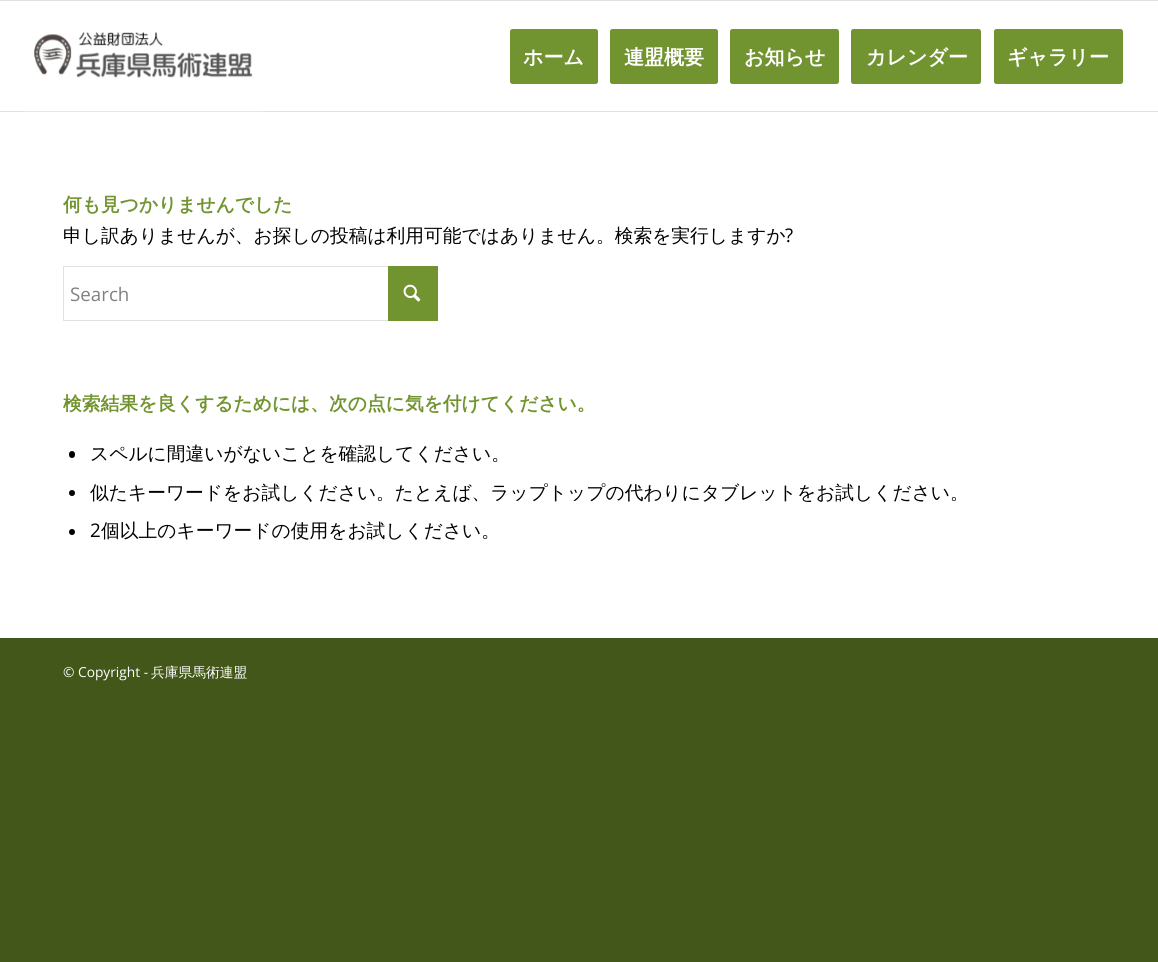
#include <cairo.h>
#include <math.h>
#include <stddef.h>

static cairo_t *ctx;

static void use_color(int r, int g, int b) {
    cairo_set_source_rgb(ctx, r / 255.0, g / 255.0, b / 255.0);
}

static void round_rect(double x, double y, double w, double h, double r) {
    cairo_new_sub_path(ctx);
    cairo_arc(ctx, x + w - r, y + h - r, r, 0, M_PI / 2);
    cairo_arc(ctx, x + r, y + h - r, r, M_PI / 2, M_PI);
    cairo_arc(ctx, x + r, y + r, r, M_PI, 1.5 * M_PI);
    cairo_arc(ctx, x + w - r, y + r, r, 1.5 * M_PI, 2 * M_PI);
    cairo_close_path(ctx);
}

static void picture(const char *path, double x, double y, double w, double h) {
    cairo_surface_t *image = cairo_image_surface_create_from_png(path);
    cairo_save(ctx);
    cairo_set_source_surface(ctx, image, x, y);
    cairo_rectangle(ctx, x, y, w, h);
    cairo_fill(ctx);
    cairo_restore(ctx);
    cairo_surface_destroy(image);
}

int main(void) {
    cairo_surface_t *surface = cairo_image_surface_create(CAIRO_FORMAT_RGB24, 1158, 962);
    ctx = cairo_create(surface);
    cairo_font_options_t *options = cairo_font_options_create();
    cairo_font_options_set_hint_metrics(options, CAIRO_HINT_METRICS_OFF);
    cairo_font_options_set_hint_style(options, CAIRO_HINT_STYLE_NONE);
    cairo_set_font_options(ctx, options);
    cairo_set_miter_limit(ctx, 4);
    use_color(66, 87, 25);
    cairo_paint(ctx);
    use_color(255, 255, 255);
    cairo_rectangle(ctx, 0, 1, 1158, 637);
    cairo_fill(ctx);
    use_color(225, 225, 225);
    cairo_rectangle(ctx, 0, 0, 1158, 1);
    cairo_fill(ctx);
    cairo_rectangle(ctx, 0, 111, 1158, 1);
    cairo_fill(ctx);
    picture("img1.png", 24, 31, 238, 81);
    use_color(113, 148, 48);
    round_rect(511.5, 30.5, 85, 52, 1);
    cairo_fill_preserve(ctx);
    cairo_set_line_width(ctx, 3);
    cairo_stroke(ctx);
    cairo_select_font_face(ctx, "WenQuanYi Zen Hei", CAIRO_FONT_SLANT_NORMAL, CAIRO_FONT_WEIGHT_BOLD);
    cairo_set_font_size(ctx, 20);
    use_color(255, 255, 255);
    cairo_move_to(ctx, 523, 64);
    cairo_show_text(ctx, "ホーム");
    use_color(113, 148, 48);
    round_rect(611.5, 30.5, 105, 52, 1);
    cairo_fill_preserve(ctx);
    cairo_stroke(ctx);
    use_color(255, 255, 255);
    cairo_move_to(ctx, 624, 64);
    cairo_show_text(ctx, "連盟概要");
    use_color(113, 148, 48);
    round_rect(731.5, 30.5, 106, 52, 1);
    cairo_fill_preserve(ctx);
    cairo_stroke(ctx);
    use_color(255, 255, 255);
    cairo_move_to(ctx, 744, 64);
    cairo_show_text(ctx, "お知らせ");
    use_color(113, 148, 48);
    round_rect(852.5, 30.5, 127, 52, 1);
    cairo_fill_preserve(ctx);
    cairo_stroke(ctx);
    use_color(255, 255, 255);
    cairo_move_to(ctx, 866, 64);
    cairo_show_text(ctx, "カレンダー");
    use_color(113, 148, 48);
    round_rect(995.5, 30.5, 126, 52, 1);
    cairo_fill_preserve(ctx);
    cairo_stroke(ctx);
    use_color(255, 255, 255);
    cairo_move_to(ctx, 1007, 64);
    cairo_show_text(ctx, "ギャラリー");
    cairo_set_font_size(ctx, 18.75);
    use_color(113, 148, 48);
    cairo_move_to(ctx, 63, 211);
    cairo_show_text(ctx, "何も見つかりませんでした");
    cairo_select_font_face(ctx, "WenQuanYi Zen Hei Medium", CAIRO_FONT_SLANT_NORMAL, CAIRO_FONT_WEIGHT_NORMAL);
    use_color(0, 0, 0);
    cairo_move_to(ctx, 63, 242);
    cairo_show_text(ctx, "申し訳ありませんが、お探しの投稿は利用可能ではありません。検索を実行しますか");
    cairo_select_font_face(ctx, "Open Sans", CAIRO_FONT_SLANT_NORMAL, CAIRO_FONT_WEIGHT_NORMAL);
    cairo_move_to(ctx, 785, 242);
    cairo_show_text(ctx, "?");
    cairo_rectangle(ctx, 63.5, 266.5, 374, 54);
    use_color(225, 225, 225);
    cairo_set_line_width(ctx, 1);
    cairo_stroke(ctx);
    use_color(113, 148, 48);
    cairo_rectangle(ctx, 388, 266, 50, 55);
    cairo_fill(ctx);
    use_color(128, 128, 128);
    cairo_move_to(ctx, 70, 301);
    cairo_show_text(ctx, "Search");
    picture("img2.png", 403, 284, 18, 18);
    cairo_select_font_face(ctx, "WenQuanYi Zen Hei", CAIRO_FONT_SLANT_NORMAL, CAIRO_FONT_WEIGHT_BOLD);
    use_color(113, 148, 48);
    cairo_move_to(ctx, 63, 410);
    cairo_show_text(ctx, "検索結果を良くするためには、次の点に気を付けてください。");
    use_color(0, 0, 0);
    round_rect(69, 451, 6, 7, 3);
    cairo_fill(ctx);
    cairo_select_font_face(ctx, "WenQuanYi Zen Hei Medium", CAIRO_FONT_SLANT_NORMAL, CAIRO_FONT_WEIGHT_NORMAL);
    cairo_move_to(ctx, 90, 460);
    cairo_show_text(ctx, "スペルに間違いがないことを確認してください。");
    cairo_new_path(ctx);
    cairo_arc(ctx, 72, 493, 3, 0, 2 * M_PI);
    cairo_fill(ctx);
    cairo_move_to(ctx, 90, 499);
    cairo_show_text(ctx, "似たキーワードをお試しください。たとえば、ラップトップの代わりにタブレットをお試しください。");
    cairo_new_path(ctx);
    cairo_arc(ctx, 72, 532, 3, 0, 2 * M_PI);
    cairo_fill(ctx);
    cairo_select_font_face(ctx, "Open Sans", CAIRO_FONT_SLANT_NORMAL, CAIRO_FONT_WEIGHT_NORMAL);
    cairo_move_to(ctx, 90, 537);
    cairo_show_text(ctx, "2");
    cairo_select_font_face(ctx, "WenQuanYi Zen Hei Medium", CAIRO_FONT_SLANT_NORMAL, CAIRO_FONT_WEIGHT_NORMAL);
    cairo_move_to(ctx, 101, 537);
    cairo_show_text(ctx, "個以上のキーワードの使用をお試しください。");
    cairo_select_font_face(ctx, "Open Sans", CAIRO_FONT_SLANT_NORMAL, CAIRO_FONT_WEIGHT_NORMAL);
    cairo_set_font_size(ctx, 13.75);
    use_color(255, 255, 255);
    cairo_move_to(ctx, 63, 677);
    cairo_show_text(ctx, "© Copyright -");
    cairo_select_font_face(ctx, "WenQuanYi Zen Hei Medium", CAIRO_FONT_SLANT_NORMAL, CAIRO_FONT_WEIGHT_NORMAL);
    cairo_move_to(ctx, 151, 677);
    cairo_show_text(ctx, "兵庫県馬術連盟");
    cairo_surface_write_to_png(surface, "result.png");
    cairo_font_options_destroy(options);
    cairo_destroy(ctx);
    cairo_surface_destroy(surface);
    return 0;
}
